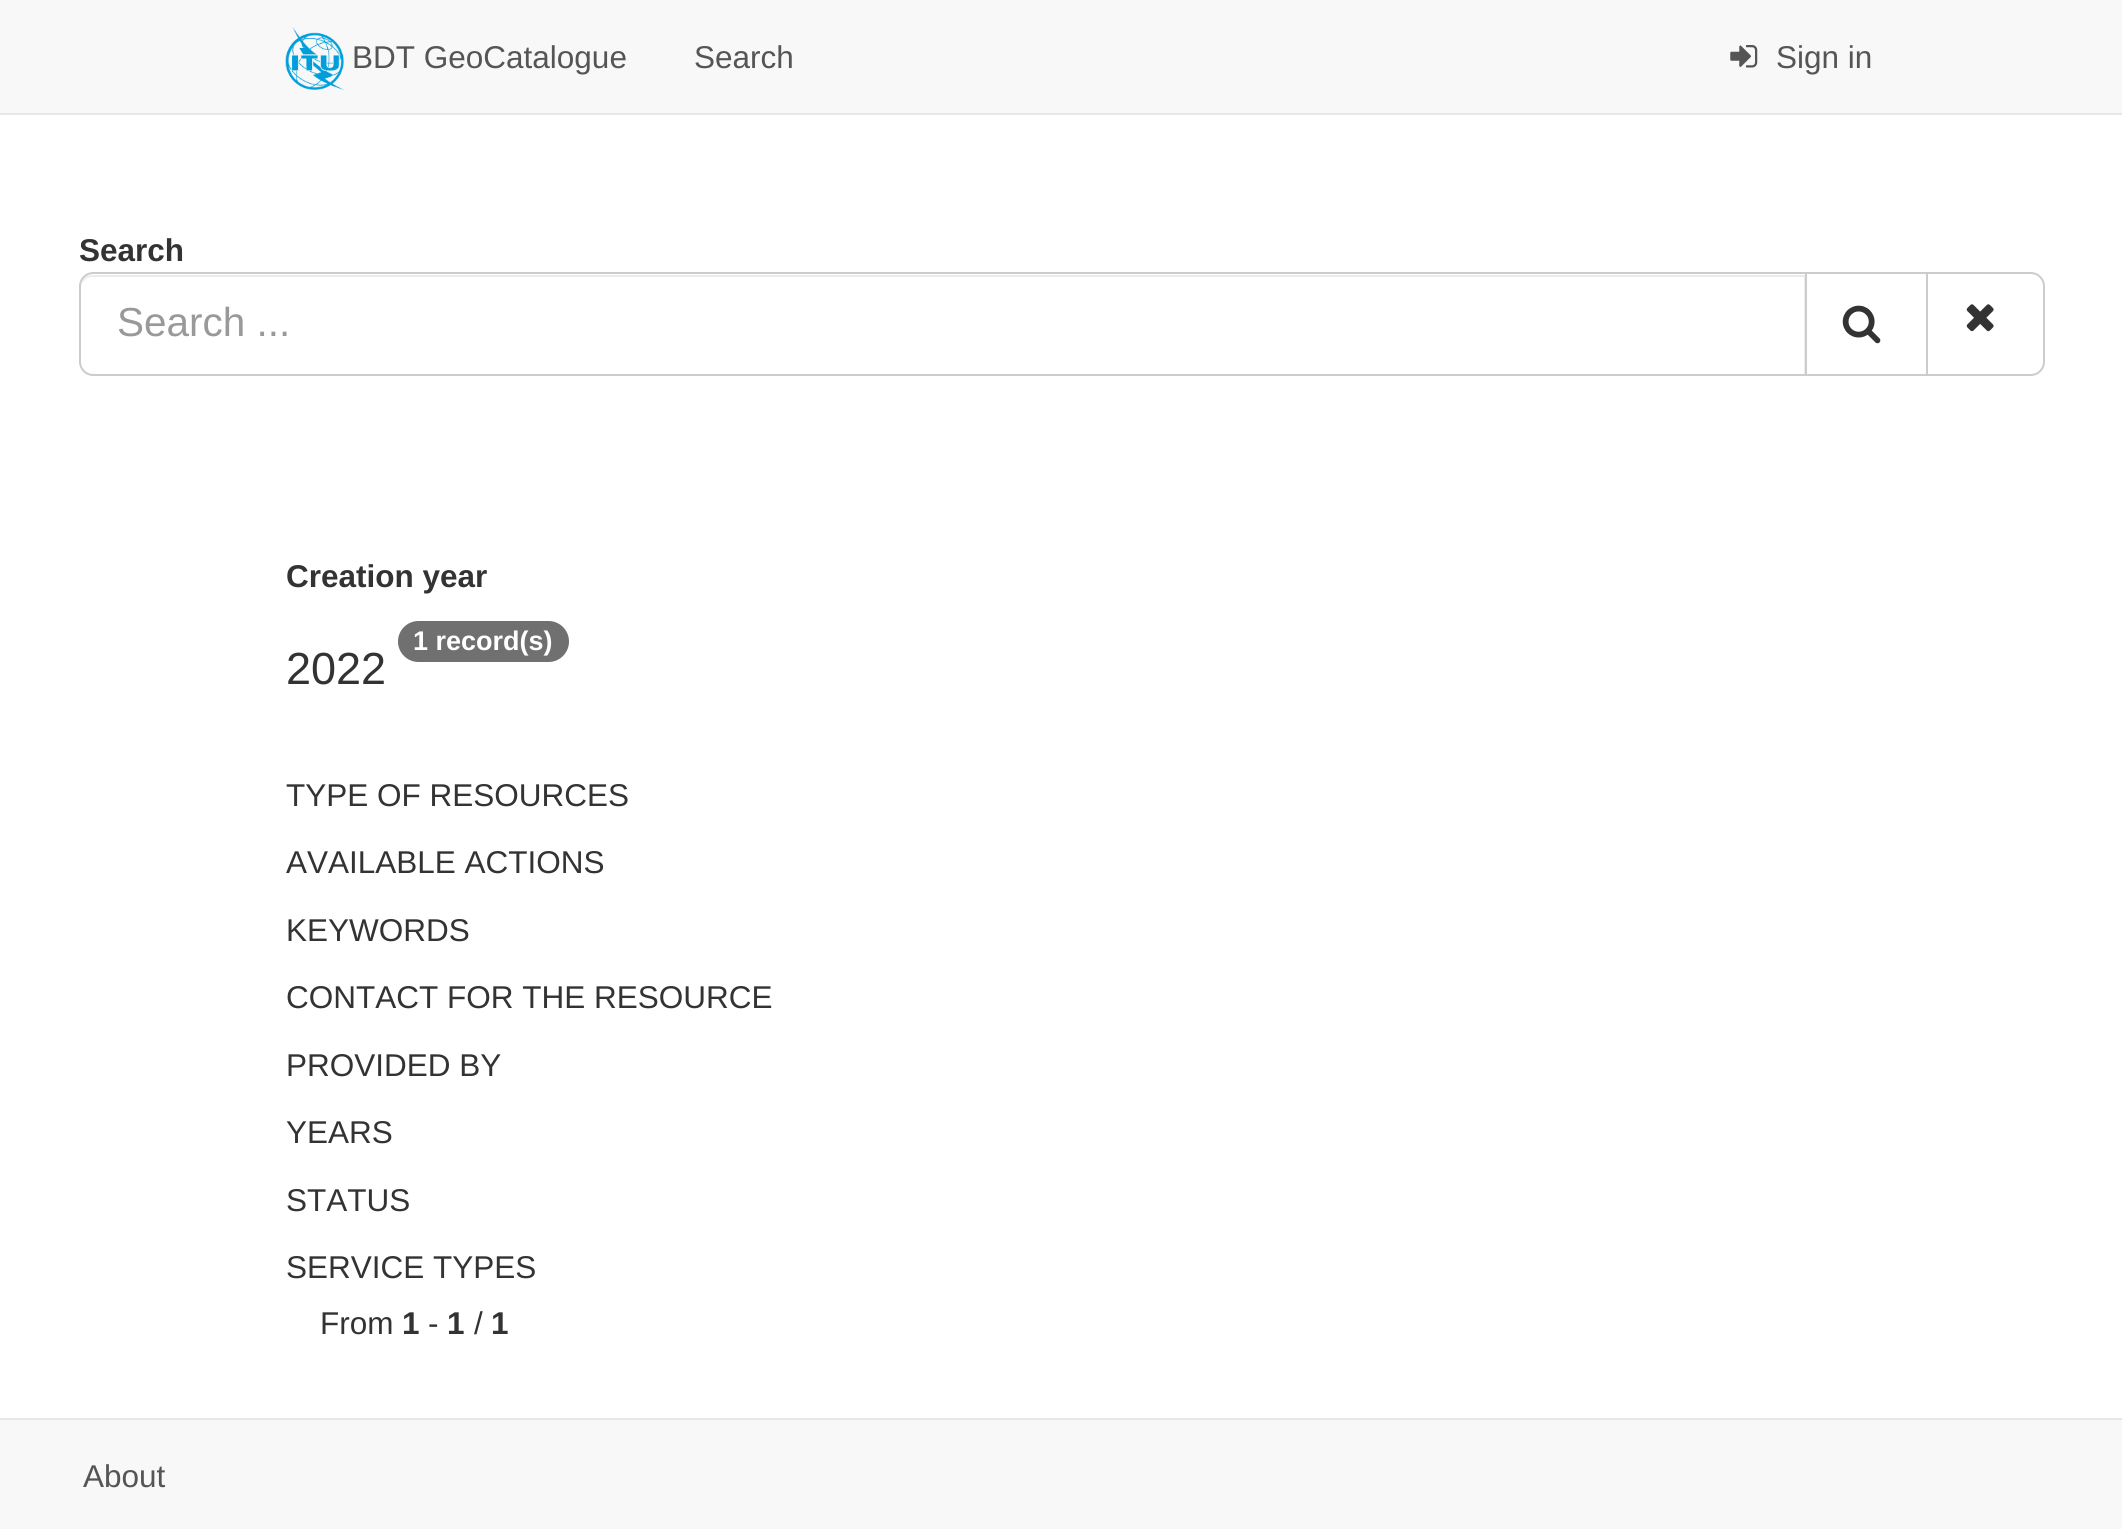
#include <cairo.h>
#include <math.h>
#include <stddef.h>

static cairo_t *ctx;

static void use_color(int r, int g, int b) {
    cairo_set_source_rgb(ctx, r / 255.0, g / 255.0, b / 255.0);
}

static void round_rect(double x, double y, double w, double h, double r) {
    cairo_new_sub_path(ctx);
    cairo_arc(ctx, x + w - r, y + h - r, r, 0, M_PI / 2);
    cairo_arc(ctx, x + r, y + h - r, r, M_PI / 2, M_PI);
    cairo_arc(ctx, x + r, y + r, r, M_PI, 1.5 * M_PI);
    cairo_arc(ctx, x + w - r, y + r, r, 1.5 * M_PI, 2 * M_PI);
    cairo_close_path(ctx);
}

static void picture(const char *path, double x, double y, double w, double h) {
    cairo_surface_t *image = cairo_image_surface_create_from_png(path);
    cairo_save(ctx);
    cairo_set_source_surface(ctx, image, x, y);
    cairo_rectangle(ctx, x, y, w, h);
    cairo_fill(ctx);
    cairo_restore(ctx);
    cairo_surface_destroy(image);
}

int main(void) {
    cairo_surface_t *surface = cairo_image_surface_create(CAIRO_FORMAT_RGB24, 2122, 1529);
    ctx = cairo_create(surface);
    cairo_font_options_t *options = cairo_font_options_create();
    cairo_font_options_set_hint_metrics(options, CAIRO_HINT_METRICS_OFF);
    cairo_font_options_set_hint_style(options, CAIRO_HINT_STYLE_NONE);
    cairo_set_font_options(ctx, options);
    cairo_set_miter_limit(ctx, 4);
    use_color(255, 255, 255);
    cairo_paint(ctx);
    use_color(248, 248, 248);
    cairo_rectangle(ctx, 0, 0, 2122, 113);
    cairo_fill(ctx);
    use_color(231, 231, 231);
    cairo_rectangle(ctx, 0, 113, 2122, 2);
    cairo_fill(ctx);
    picture("img1.png", 285, 27, 60, 63);
    cairo_select_font_face(ctx, "Liberation Sans", CAIRO_FONT_SLANT_NORMAL, CAIRO_FONT_WEIGHT_NORMAL);
    cairo_set_font_size(ctx, 31.5);
    use_color(85, 85, 85);
    cairo_move_to(ctx, 352, 68);
    cairo_show_text(ctx, "BDT GeoCatalogue");
    cairo_move_to(ctx, 694, 68);
    cairo_show_text(ctx, "Search");
    picture("img2.png", 1730, 45, 28, 23);
    cairo_move_to(ctx, 1776, 68);
    cairo_show_text(ctx, "Sign in");
    cairo_select_font_face(ctx, "Liberation Sans", CAIRO_FONT_SLANT_NORMAL, CAIRO_FONT_WEIGHT_BOLD);
    use_color(51, 51, 51);
    cairo_move_to(ctx, 79, 261);
    cairo_show_text(ctx, "Search");
    use_color(236, 236, 236);
    cairo_new_path(ctx);
    cairo_move_to(ctx, 92, 277);
    cairo_line_to(ctx, 1804, 277);
    cairo_line_to(ctx, 1804, 374);
    cairo_line_to(ctx, 1805, 374);
    cairo_line_to(ctx, 1805, 275);
    cairo_line_to(ctx, 92, 275);
    cairo_curve_to(ctx, 86, 275, 81, 280, 81, 286);
    cairo_line_to(ctx, 81, 288);
    cairo_curve_to(ctx, 81, 282, 86, 277, 92, 277);
    cairo_close_path(ctx);
    cairo_fill(ctx);
    cairo_new_path(ctx);
    cairo_move_to(ctx, 93, 273);
    cairo_line_to(ctx, 1806, 273);
    cairo_line_to(ctx, 1806, 375);
    cairo_line_to(ctx, 93, 375);
    cairo_curve_to(ctx, 86, 375, 80, 369, 80, 362);
    cairo_line_to(ctx, 80, 286);
    cairo_curve_to(ctx, 80, 279, 86, 273, 93, 273);
    cairo_close_path(ctx);
    use_color(204, 204, 204);
    cairo_stroke(ctx);
    cairo_select_font_face(ctx, "Liberation Sans", CAIRO_FONT_SLANT_NORMAL, CAIRO_FONT_WEIGHT_NORMAL);
    cairo_set_font_size(ctx, 40.5);
    use_color(153, 153, 153);
    cairo_move_to(ctx, 117, 336);
    cairo_show_text(ctx, "Search ...");
    cairo_rectangle(ctx, 1806, 273, 121, 102);
    use_color(204, 204, 204);
    cairo_stroke(ctx);
    picture("img3.png", 1842, 305, 39, 39);
    use_color(255, 255, 255);
    cairo_new_path(ctx);
    cairo_move_to(ctx, 1927, 273);
    cairo_line_to(ctx, 2031, 273);
    cairo_curve_to(ctx, 2038, 273, 2044, 279, 2044, 286);
    cairo_line_to(ctx, 2044, 362);
    cairo_curve_to(ctx, 2044, 369, 2038, 375, 2031, 375);
    cairo_line_to(ctx, 1927, 375);
    cairo_close_path(ctx);
    cairo_fill_preserve(ctx);
    use_color(204, 204, 204);
    cairo_stroke(ctx);
    picture("img4.png", 1966, 304, 28, 28);
    cairo_select_font_face(ctx, "Liberation Sans", CAIRO_FONT_SLANT_NORMAL, CAIRO_FONT_WEIGHT_BOLD);
    cairo_set_font_size(ctx, 31.5);
    use_color(51, 51, 51);
    cairo_move_to(ctx, 286, 587);
    cairo_show_text(ctx, "Creation year");
    use_color(112, 112, 112);
    round_rect(398, 621, 171, 41, 20.5);
    cairo_fill(ctx);
    cairo_set_font_size(ctx, 27);
    use_color(255, 255, 255);
    cairo_move_to(ctx, 413, 650);
    cairo_show_text(ctx, "1 record(s)");
    cairo_select_font_face(ctx, "Liberation Sans", CAIRO_FONT_SLANT_NORMAL, CAIRO_FONT_WEIGHT_NORMAL);
    cairo_set_font_size(ctx, 45);
    use_color(51, 51, 51);
    cairo_move_to(ctx, 286, 684);
    cairo_show_text(ctx, "2022");
    cairo_set_font_size(ctx, 31.5);
    cairo_move_to(ctx, 286, 806);
    cairo_show_text(ctx, "TYPE OF RESOURCES");
    cairo_move_to(ctx, 286, 873);
    cairo_show_text(ctx, "AVAILABLE ACTIONS");
    cairo_move_to(ctx, 286, 941);
    cairo_show_text(ctx, "KEYWORDS");
    cairo_move_to(ctx, 286, 1008);
    cairo_show_text(ctx, "CONTACT FOR THE RESOURCE");
    cairo_move_to(ctx, 286, 1076);
    cairo_show_text(ctx, "PROVIDED BY");
    cairo_move_to(ctx, 286, 1143);
    cairo_show_text(ctx, "YEARS");
    cairo_move_to(ctx, 286, 1211);
    cairo_show_text(ctx, "STATUS");
    cairo_move_to(ctx, 286, 1278);
    cairo_show_text(ctx, "SERVICE TYPES");
    cairo_move_to(ctx, 320, 1334);
    cairo_show_text(ctx, "From");
    cairo_select_font_face(ctx, "Liberation Sans", CAIRO_FONT_SLANT_NORMAL, CAIRO_FONT_WEIGHT_BOLD);
    cairo_move_to(ctx, 402, 1334);
    cairo_show_text(ctx, "1");
    cairo_select_font_face(ctx, "Liberation Sans", CAIRO_FONT_SLANT_NORMAL, CAIRO_FONT_WEIGHT_NORMAL);
    cairo_move_to(ctx, 428, 1334);
    cairo_show_text(ctx, "-");
    cairo_select_font_face(ctx, "Liberation Sans", CAIRO_FONT_SLANT_NORMAL, CAIRO_FONT_WEIGHT_BOLD);
    cairo_move_to(ctx, 447, 1334);
    cairo_show_text(ctx, "1");
    cairo_select_font_face(ctx, "Liberation Sans", CAIRO_FONT_SLANT_NORMAL, CAIRO_FONT_WEIGHT_NORMAL);
    cairo_move_to(ctx, 474, 1334);
    cairo_show_text(ctx, "/");
    cairo_select_font_face(ctx, "Liberation Sans", CAIRO_FONT_SLANT_NORMAL, CAIRO_FONT_WEIGHT_BOLD);
    cairo_move_to(ctx, 491, 1334);
    cairo_show_text(ctx, "1");
    use_color(248, 248, 248);
    cairo_rectangle(ctx, 0, 1420, 2122, 109);
    cairo_fill(ctx);
    use_color(231, 231, 231);
    cairo_rectangle(ctx, 0, 1418, 2122, 2);
    cairo_fill(ctx);
    cairo_select_font_face(ctx, "Liberation Sans", CAIRO_FONT_SLANT_NORMAL, CAIRO_FONT_WEIGHT_NORMAL);
    use_color(85, 85, 85);
    cairo_move_to(ctx, 83, 1487);
    cairo_show_text(ctx, "About");
    cairo_surface_write_to_png(surface, "result.png");
    cairo_font_options_destroy(options);
    cairo_destroy(ctx);
    cairo_surface_destroy(surface);
    return 0;
}
